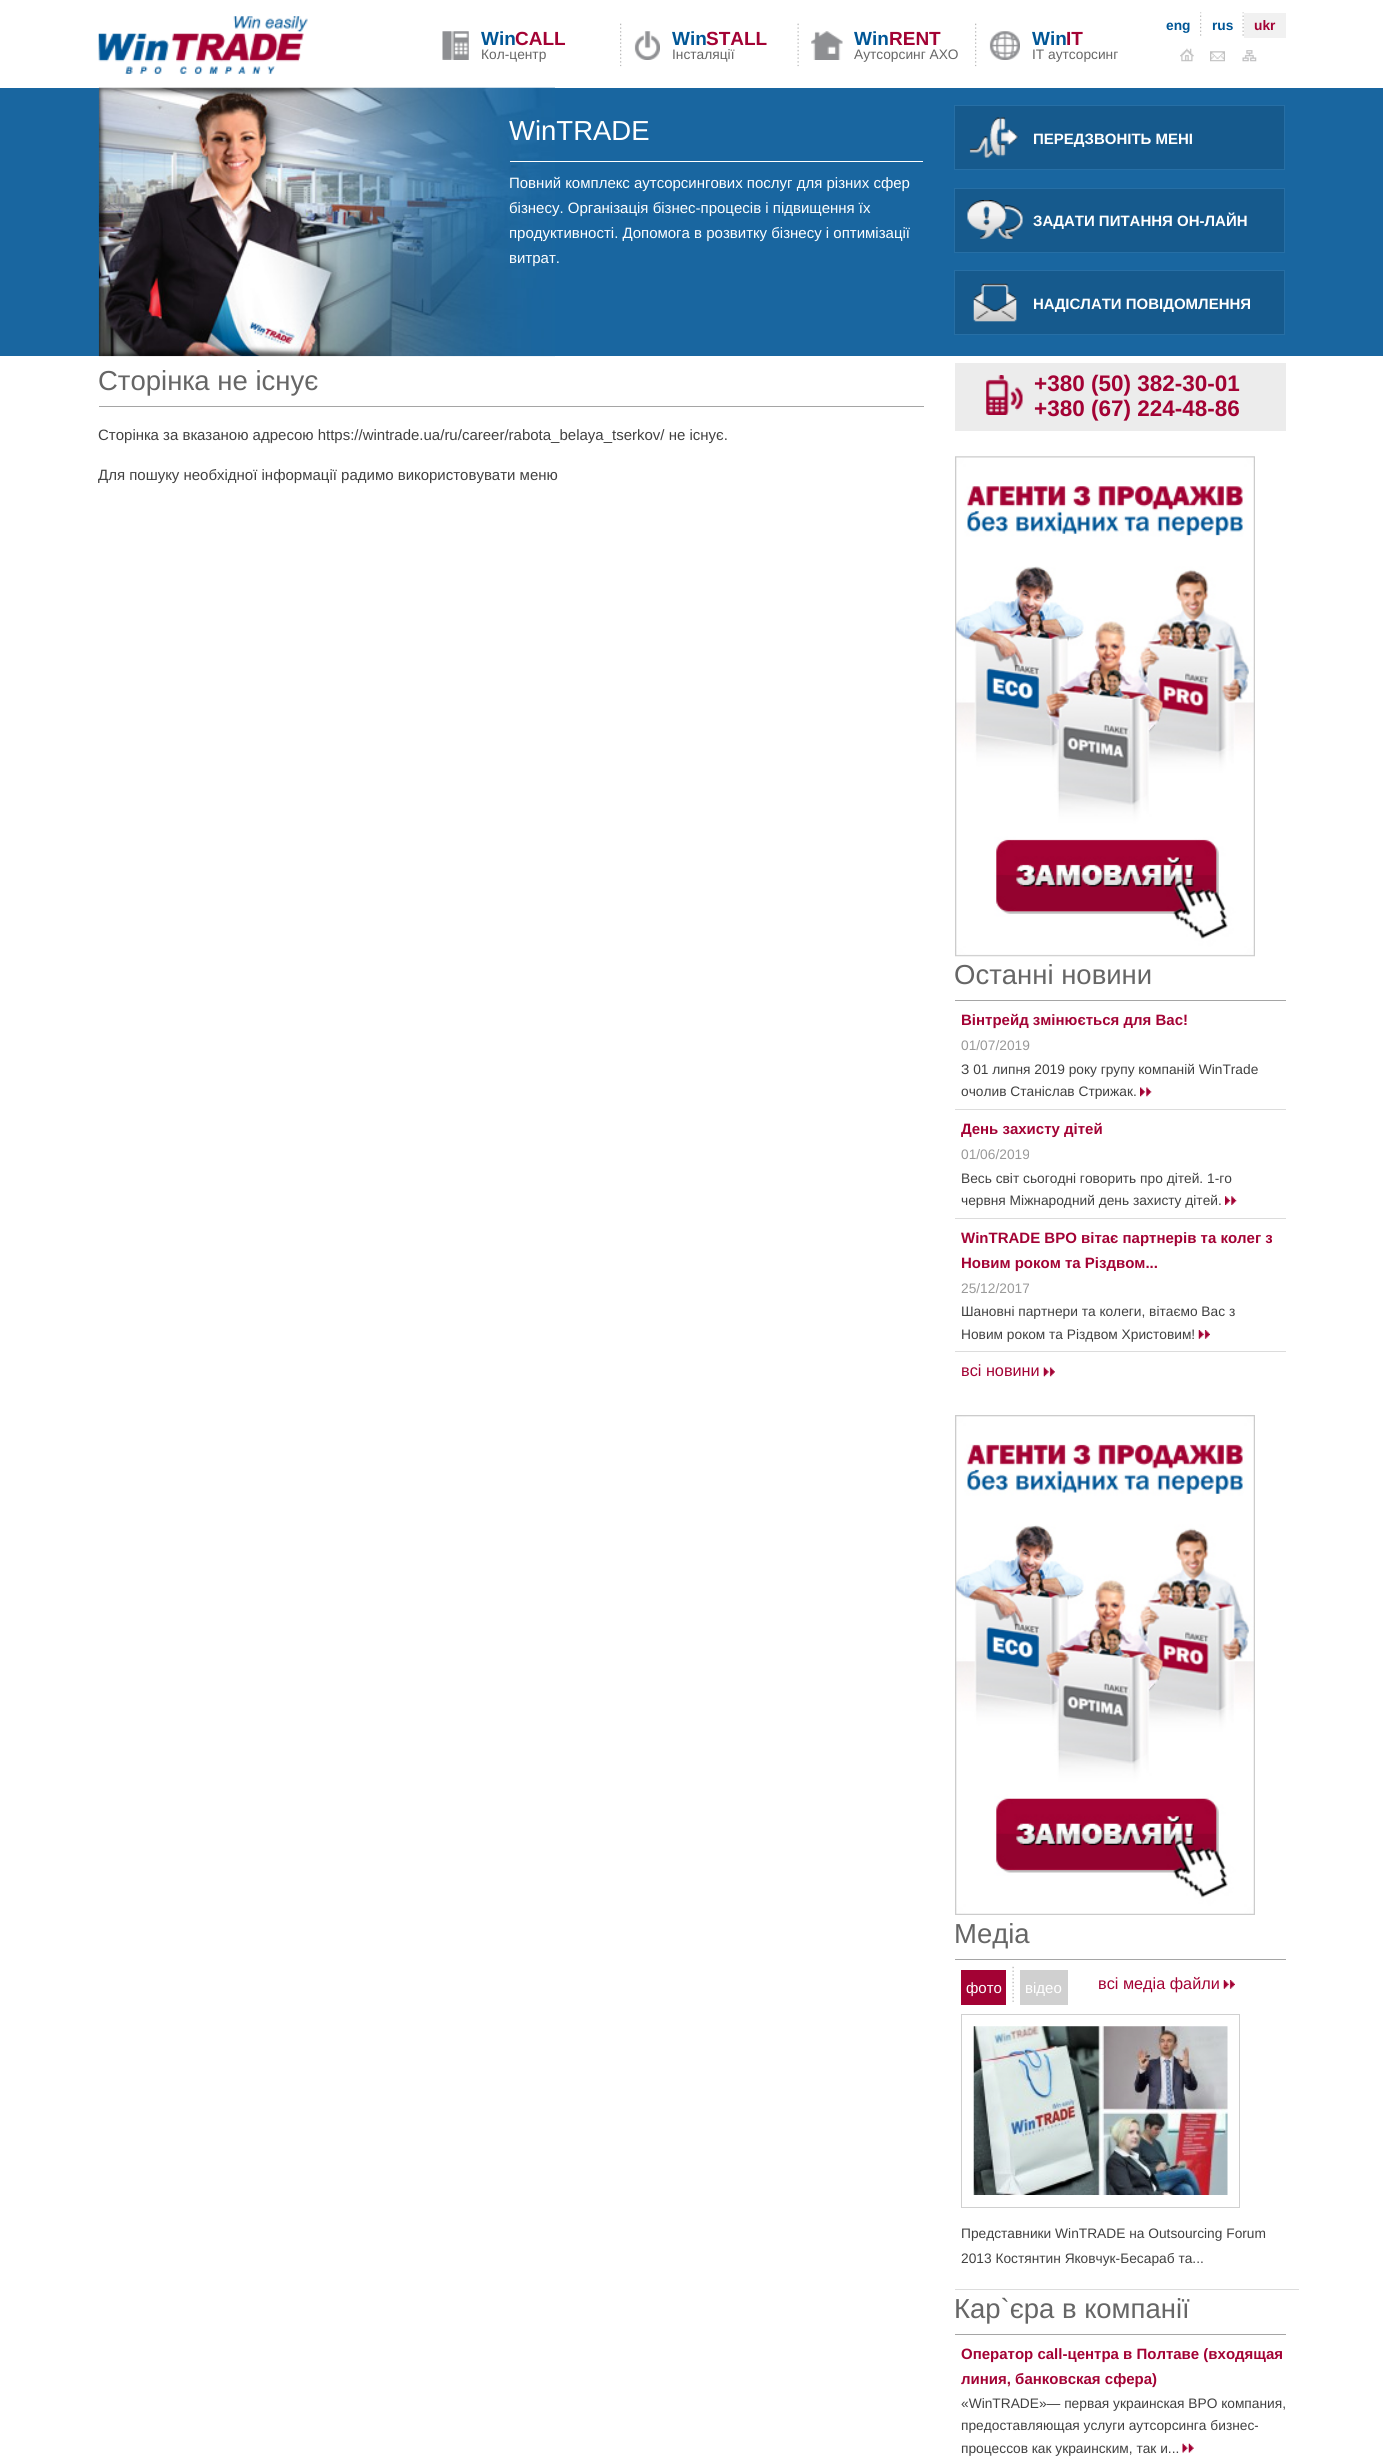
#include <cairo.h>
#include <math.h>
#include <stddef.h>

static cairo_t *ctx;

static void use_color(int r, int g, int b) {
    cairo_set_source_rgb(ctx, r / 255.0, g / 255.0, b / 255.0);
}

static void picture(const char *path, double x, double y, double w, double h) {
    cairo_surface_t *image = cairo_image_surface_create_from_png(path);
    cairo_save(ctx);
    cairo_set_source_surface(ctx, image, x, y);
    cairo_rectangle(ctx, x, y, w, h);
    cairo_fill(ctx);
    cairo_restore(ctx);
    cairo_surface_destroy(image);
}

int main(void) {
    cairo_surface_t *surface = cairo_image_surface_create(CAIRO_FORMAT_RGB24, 1383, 2462);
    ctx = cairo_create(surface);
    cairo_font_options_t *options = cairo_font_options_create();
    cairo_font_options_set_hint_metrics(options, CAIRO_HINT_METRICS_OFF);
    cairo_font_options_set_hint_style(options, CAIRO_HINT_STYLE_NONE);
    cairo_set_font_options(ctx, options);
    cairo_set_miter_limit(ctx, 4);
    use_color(255, 255, 255);
    cairo_paint(ctx);
    picture("img1.png", 98, 16, 210, 58);
    cairo_select_font_face(ctx, "Liberation Sans", CAIRO_FONT_SLANT_NORMAL, CAIRO_FONT_WEIGHT_BOLD);
    cairo_set_font_size(ctx, 13.75);
    use_color(0, 86, 150);
    cairo_move_to(ctx, 1166, 30);
    cairo_show_text(ctx, "eng");
    picture("img2.png", 1200, 12, 2, 24);
    cairo_move_to(ctx, 1212, 30);
    cairo_show_text(ctx, "rus");
    picture("img3.png", 1242, 12, 2, 24);
    use_color(241, 241, 241);
    cairo_rectangle(ctx, 1244, 13, 42, 25);
    cairo_fill(ctx);
    use_color(163, 2, 52);
    cairo_move_to(ctx, 1254, 30);
    cairo_show_text(ctx, "ukr");
    picture("img4.png", 442, 31, 27, 29);
    cairo_set_font_size(ctx, 19);
    use_color(0, 86, 150);
    cairo_move_to(ctx, 481, 45);
    cairo_show_text(ctx, "Win");
    use_color(163, 2, 52);
    cairo_move_to(ctx, 515, 45);
    cairo_show_text(ctx, "CALL");
    cairo_select_font_face(ctx, "Liberation Sans", CAIRO_FONT_SLANT_NORMAL, CAIRO_FONT_WEIGHT_NORMAL);
    cairo_set_font_size(ctx, 13.75);
    use_color(102, 102, 102);
    cairo_move_to(ctx, 481, 59);
    cairo_show_text(ctx, "Кол-центр");
    picture("img5.png", 620, 23, 2, 44);
    picture("img6.png", 634, 31, 26, 29);
    cairo_select_font_face(ctx, "Liberation Sans", CAIRO_FONT_SLANT_NORMAL, CAIRO_FONT_WEIGHT_BOLD);
    cairo_set_font_size(ctx, 19);
    use_color(0, 86, 150);
    cairo_move_to(ctx, 672, 45);
    cairo_show_text(ctx, "Win");
    use_color(163, 2, 52);
    cairo_move_to(ctx, 706, 45);
    cairo_show_text(ctx, "STALL");
    cairo_select_font_face(ctx, "Liberation Sans", CAIRO_FONT_SLANT_NORMAL, CAIRO_FONT_WEIGHT_NORMAL);
    cairo_set_font_size(ctx, 13.75);
    use_color(102, 102, 102);
    cairo_move_to(ctx, 672, 59);
    cairo_show_text(ctx, "Інсталяції");
    picture("img7.png", 797, 23, 2, 44);
    picture("img8.png", 811, 31, 32, 29);
    cairo_select_font_face(ctx, "Liberation Sans", CAIRO_FONT_SLANT_NORMAL, CAIRO_FONT_WEIGHT_BOLD);
    cairo_set_font_size(ctx, 19);
    use_color(0, 86, 150);
    cairo_move_to(ctx, 854, 45);
    cairo_show_text(ctx, "Win");
    use_color(163, 2, 52);
    cairo_move_to(ctx, 889, 45);
    cairo_show_text(ctx, "RENT");
    cairo_select_font_face(ctx, "Liberation Sans", CAIRO_FONT_SLANT_NORMAL, CAIRO_FONT_WEIGHT_NORMAL);
    cairo_set_font_size(ctx, 13.75);
    use_color(102, 102, 102);
    cairo_move_to(ctx, 854, 59);
    cairo_show_text(ctx, "Аутсорсинг АХО");
    picture("img5.png", 975, 23, 2, 44);
    picture("img9.png", 989, 31, 31, 29);
    cairo_select_font_face(ctx, "Liberation Sans", CAIRO_FONT_SLANT_NORMAL, CAIRO_FONT_WEIGHT_BOLD);
    cairo_set_font_size(ctx, 19);
    use_color(0, 86, 150);
    cairo_move_to(ctx, 1032, 45);
    cairo_show_text(ctx, "Win");
    use_color(163, 2, 52);
    cairo_move_to(ctx, 1066, 45);
    cairo_show_text(ctx, "IT");
    cairo_select_font_face(ctx, "Liberation Sans", CAIRO_FONT_SLANT_NORMAL, CAIRO_FONT_WEIGHT_NORMAL);
    cairo_set_font_size(ctx, 13.75);
    use_color(102, 102, 102);
    cairo_move_to(ctx, 1032, 59);
    cairo_show_text(ctx, "ІТ аутсорсинг");
    picture("img10.png", 1180, 48, 14, 14);
    picture("img11.png", 1210, 51, 15, 11);
    picture("img12.png", 1242, 50, 15, 12);
    use_color(25, 102, 160);
    cairo_rectangle(ctx, 0, 88, 1383, 268);
    cairo_fill(ctx);
    picture("img13.png", 98, 87, 457, 270);
    cairo_set_font_size(ctx, 27.5);
    use_color(255, 255, 255);
    cairo_move_to(ctx, 509, 140);
    cairo_show_text(ctx, "WinTRADE");
    cairo_rectangle(ctx, 510, 161, 413, 1);
    cairo_fill(ctx);
    cairo_set_font_size(ctx, 15);
    cairo_move_to(ctx, 509, 188);
    cairo_show_text(ctx, "Повний комплекс аутсорсингових послуг для різних сфер");
    cairo_move_to(ctx, 509, 213);
    cairo_show_text(ctx, "бізнесу. Організація бізнес-процесів і підвищення їх");
    cairo_move_to(ctx, 509, 238);
    cairo_show_text(ctx, "продуктивності. Допомога в розвитку бізнесу і оптимізації");
    cairo_move_to(ctx, 509, 263);
    cairo_show_text(ctx, "витрат.");
    use_color(22, 90, 141);
    cairo_rectangle(ctx, 954.5, 105.5, 330, 64);
    cairo_fill_preserve(ctx);
    use_color(39, 111, 165);
    cairo_set_line_width(ctx, 1);
    cairo_stroke(ctx);
    picture("img14.png", 969, 117, 50, 41);
    cairo_select_font_face(ctx, "Liberation Sans", CAIRO_FONT_SLANT_NORMAL, CAIRO_FONT_WEIGHT_BOLD);
    use_color(255, 255, 255);
    cairo_move_to(ctx, 1033, 144);
    cairo_show_text(ctx, "ПЕРЕДЗВОНІТЬ МЕНІ");
    use_color(22, 90, 141);
    cairo_rectangle(ctx, 954.5, 188.5, 330, 64);
    cairo_fill_preserve(ctx);
    use_color(39, 111, 165);
    cairo_stroke(ctx);
    picture("img15.png", 967, 200, 56, 39);
    use_color(255, 255, 255);
    cairo_move_to(ctx, 1033, 226);
    cairo_show_text(ctx, "ЗАДАТИ ПИТАННЯ ОН-ЛАЙН");
    use_color(22, 90, 141);
    cairo_rectangle(ctx, 954.5, 270.5, 330, 64);
    cairo_fill_preserve(ctx);
    use_color(39, 111, 165);
    cairo_stroke(ctx);
    picture("img16.png", 973, 283, 44, 39);
    use_color(255, 255, 255);
    cairo_move_to(ctx, 1033, 309);
    cairo_show_text(ctx, "НАДІСЛАТИ ПОВІДОМЛЕННЯ");
    use_color(165, 165, 165);
    cairo_rectangle(ctx, 99, 406, 825, 1);
    cairo_fill(ctx);
    cairo_select_font_face(ctx, "Liberation Sans", CAIRO_FONT_SLANT_NORMAL, CAIRO_FONT_WEIGHT_NORMAL);
    cairo_set_font_size(ctx, 27.5);
    use_color(102, 102, 102);
    cairo_move_to(ctx, 98, 390);
    cairo_show_text(ctx, "Сторінка не існує");
    cairo_set_font_size(ctx, 15);
    use_color(65, 65, 65);
    cairo_move_to(ctx, 98, 440);
    cairo_show_text(ctx, "Сторінка за вказаною адресою https://wintrade.ua/ru/career/rabota_belaya_tserkov/ не існує.");
    cairo_move_to(ctx, 98, 480);
    cairo_show_text(ctx, "Для пошуку необхідної інформації радимо використовувати меню");
    use_color(236, 236, 236);
    cairo_rectangle(ctx, 955, 363, 331, 68);
    cairo_fill(ctx);
    picture("img17.png", 986, 375, 37, 40);
    cairo_select_font_face(ctx, "Liberation Sans", CAIRO_FONT_SLANT_NORMAL, CAIRO_FONT_WEIGHT_BOLD);
    cairo_set_font_size(ctx, 22.5);
    use_color(163, 2, 52);
    cairo_move_to(ctx, 1034, 391);
    cairo_show_text(ctx, "+380 (50) 382-30-01");
    cairo_move_to(ctx, 1034, 416);
    cairo_show_text(ctx, "+380 (67) 224-48-86");
    picture("img18.png", 955, 456, 300, 501);
    use_color(165, 165, 165);
    cairo_rectangle(ctx, 955, 1000, 331, 1);
    cairo_fill(ctx);
    cairo_select_font_face(ctx, "Liberation Sans", CAIRO_FONT_SLANT_NORMAL, CAIRO_FONT_WEIGHT_NORMAL);
    cairo_set_font_size(ctx, 27.5);
    use_color(102, 102, 102);
    cairo_move_to(ctx, 954, 984);
    cairo_show_text(ctx, "Останні новини");
    use_color(220, 220, 220);
    cairo_rectangle(ctx, 955, 1109, 331, 1);
    cairo_fill(ctx);
    cairo_select_font_face(ctx, "Liberation Sans", CAIRO_FONT_SLANT_NORMAL, CAIRO_FONT_WEIGHT_BOLD);
    cairo_set_font_size(ctx, 15);
    use_color(163, 2, 52);
    cairo_move_to(ctx, 961, 1025);
    cairo_show_text(ctx, "Вінтрейд змінюється для Вас!");
    cairo_select_font_face(ctx, "Liberation Sans", CAIRO_FONT_SLANT_NORMAL, CAIRO_FONT_WEIGHT_NORMAL);
    cairo_set_font_size(ctx, 13.75);
    use_color(153, 153, 153);
    cairo_move_to(ctx, 961, 1050);
    cairo_show_text(ctx, "01/07/2019");
    use_color(65, 65, 65);
    cairo_move_to(ctx, 961, 1074);
    cairo_show_text(ctx, "З 01 липня 2019 року групу компаній WinTrade");
    cairo_move_to(ctx, 961, 1096);
    cairo_show_text(ctx, "очолив Станіслав Стрижак.");
    picture("img19.png", 1140, 1087, 12, 10);
    use_color(220, 220, 220);
    cairo_rectangle(ctx, 955, 1218, 331, 1);
    cairo_fill(ctx);
    cairo_select_font_face(ctx, "Liberation Sans", CAIRO_FONT_SLANT_NORMAL, CAIRO_FONT_WEIGHT_BOLD);
    cairo_set_font_size(ctx, 15);
    use_color(163, 2, 52);
    cairo_move_to(ctx, 961, 1134);
    cairo_show_text(ctx, "День захисту дітей");
    cairo_select_font_face(ctx, "Liberation Sans", CAIRO_FONT_SLANT_NORMAL, CAIRO_FONT_WEIGHT_NORMAL);
    cairo_set_font_size(ctx, 13.75);
    use_color(153, 153, 153);
    cairo_move_to(ctx, 961, 1159);
    cairo_show_text(ctx, "01/06/2019");
    use_color(65, 65, 65);
    cairo_move_to(ctx, 961, 1183);
    cairo_show_text(ctx, "Весь світ сьогодні говорить про дітей. 1-го");
    cairo_move_to(ctx, 961, 1205);
    cairo_show_text(ctx, "червня Міжнародний день захисту дітей.");
    picture("img20.png", 1225, 1196, 12, 9);
    use_color(220, 220, 220);
    cairo_rectangle(ctx, 955, 1351, 331, 1);
    cairo_fill(ctx);
    cairo_select_font_face(ctx, "Liberation Sans", CAIRO_FONT_SLANT_NORMAL, CAIRO_FONT_WEIGHT_BOLD);
    cairo_set_font_size(ctx, 15);
    use_color(163, 2, 52);
    cairo_move_to(ctx, 961, 1243);
    cairo_show_text(ctx, "WinTRADE BPO вітає партнерів та колег з");
    cairo_move_to(ctx, 961, 1268);
    cairo_show_text(ctx, "Новим роком та Різдвом...");
    cairo_select_font_face(ctx, "Liberation Sans", CAIRO_FONT_SLANT_NORMAL, CAIRO_FONT_WEIGHT_NORMAL);
    cairo_set_font_size(ctx, 13.75);
    use_color(153, 153, 153);
    cairo_move_to(ctx, 961, 1293);
    cairo_show_text(ctx, "25/12/2017");
    use_color(65, 65, 65);
    cairo_move_to(ctx, 961, 1316);
    cairo_show_text(ctx, "Шановні партнери та колеги, вітаємо Вас з");
    cairo_move_to(ctx, 961, 1339);
    cairo_show_text(ctx, "Новим роком та Різдвом Христовим!");
    picture("img21.png", 1198, 1330, 12, 9);
    cairo_set_font_size(ctx, 16.25);
    use_color(163, 2, 52);
    cairo_move_to(ctx, 961, 1376);
    cairo_show_text(ctx, "всі новини");
    picture("img22.png", 1043, 1367, 12, 10);
    picture("img23.png", 955, 1415, 300, 500);
    use_color(165, 165, 165);
    cairo_rectangle(ctx, 955, 1959, 331, 1);
    cairo_fill(ctx);
    cairo_set_font_size(ctx, 27.5);
    use_color(102, 102, 102);
    cairo_move_to(ctx, 954, 1943);
    cairo_show_text(ctx, "Медіа");
    use_color(163, 2, 52);
    cairo_rectangle(ctx, 961, 1970, 45, 35);
    cairo_fill(ctx);
    cairo_set_font_size(ctx, 15);
    use_color(255, 255, 255);
    cairo_move_to(ctx, 966, 1993);
    cairo_show_text(ctx, "фото");
    picture("img24.png", 1012, 1966, 2, 36);
    use_color(208, 208, 208);
    cairo_rectangle(ctx, 1020, 1970, 48, 35);
    cairo_fill(ctx);
    use_color(255, 255, 255);
    cairo_move_to(ctx, 1025, 1993);
    cairo_show_text(ctx, "відео");
    cairo_set_font_size(ctx, 16.25);
    use_color(163, 2, 52);
    cairo_move_to(ctx, 1098, 1989);
    cairo_show_text(ctx, "всі медіа файли");
    picture("img21.png", 1223, 1980, 12, 9);
    use_color(220, 220, 220);
    cairo_rectangle(ctx, 955, 2289, 344, 1);
    cairo_fill(ctx);
    cairo_rectangle(ctx, 961.5, 2014.5, 278, 193);
    use_color(208, 208, 208);
    cairo_stroke(ctx);
    picture("img25.png", 973, 2026, 255, 169);
    cairo_set_font_size(ctx, 13.75);
    use_color(65, 65, 65);
    cairo_move_to(ctx, 961, 2238);
    cairo_show_text(ctx, "Представники WinTRADE на Outsourcing Forum");
    cairo_move_to(ctx, 961, 2263);
    cairo_show_text(ctx, "2013 Костянтин Яковчук-Бесараб та...");
    use_color(165, 165, 165);
    cairo_rectangle(ctx, 955, 2334, 331, 1);
    cairo_fill(ctx);
    cairo_set_font_size(ctx, 27.5);
    use_color(102, 102, 102);
    cairo_move_to(ctx, 954, 2318);
    cairo_show_text(ctx, "Кар`єра в компанії");
    cairo_select_font_face(ctx, "Liberation Sans", CAIRO_FONT_SLANT_NORMAL, CAIRO_FONT_WEIGHT_BOLD);
    cairo_set_font_size(ctx, 15);
    use_color(163, 2, 52);
    cairo_move_to(ctx, 961, 2359);
    cairo_show_text(ctx, "Оператор call-центра в Полтаве (входящая");
    cairo_move_to(ctx, 961, 2384);
    cairo_show_text(ctx, "линия, банковская сфера)");
    cairo_select_font_face(ctx, "Liberation Sans", CAIRO_FONT_SLANT_NORMAL, CAIRO_FONT_WEIGHT_NORMAL);
    cairo_set_font_size(ctx, 13.75);
    use_color(65, 65, 65);
    cairo_move_to(ctx, 961, 2408);
    cairo_show_text(ctx, "«WinTRADE»— первая украинская BPO компания,");
    cairo_move_to(ctx, 961, 2430);
    cairo_show_text(ctx, "предоставляющая услуги аутсорсинга бизнес-");
    cairo_move_to(ctx, 961, 2453);
    cairo_show_text(ctx, "процессов как украинским, так и...");
    picture("img26.png", 1182, 2443, 12, 10);
    cairo_surface_write_to_png(surface, "result.png");
    cairo_font_options_destroy(options);
    cairo_destroy(ctx);
    cairo_surface_destroy(surface);
    return 0;
}
